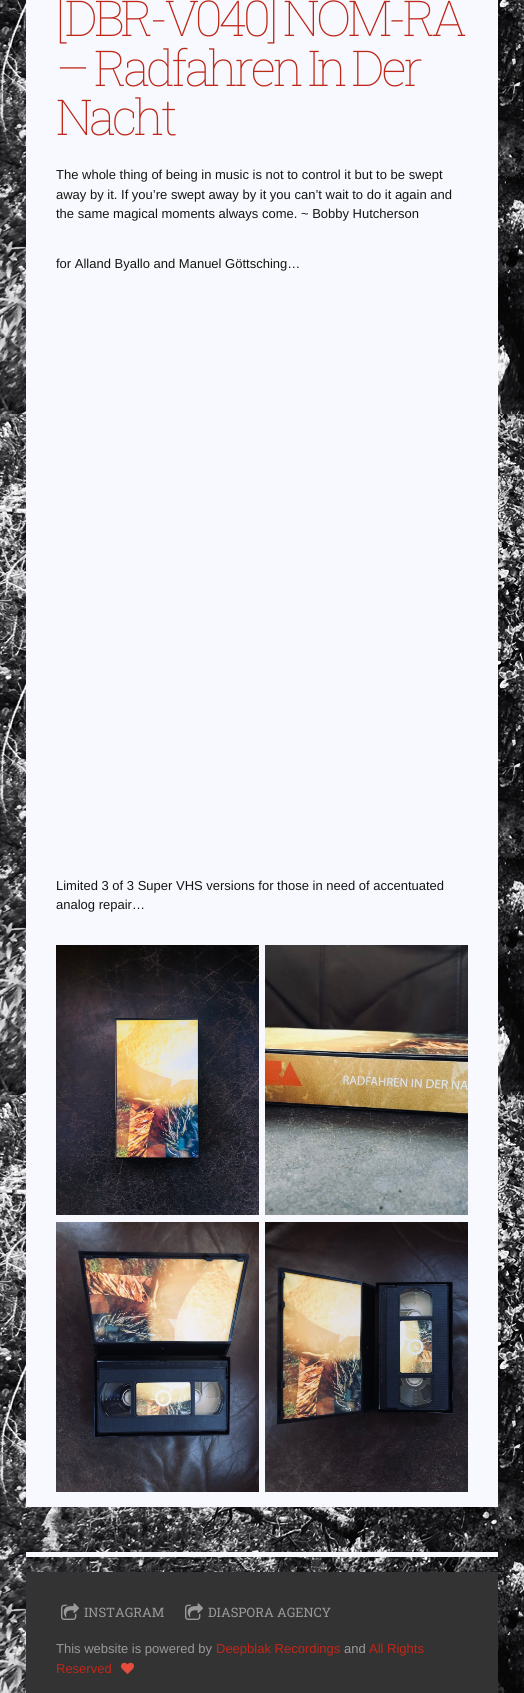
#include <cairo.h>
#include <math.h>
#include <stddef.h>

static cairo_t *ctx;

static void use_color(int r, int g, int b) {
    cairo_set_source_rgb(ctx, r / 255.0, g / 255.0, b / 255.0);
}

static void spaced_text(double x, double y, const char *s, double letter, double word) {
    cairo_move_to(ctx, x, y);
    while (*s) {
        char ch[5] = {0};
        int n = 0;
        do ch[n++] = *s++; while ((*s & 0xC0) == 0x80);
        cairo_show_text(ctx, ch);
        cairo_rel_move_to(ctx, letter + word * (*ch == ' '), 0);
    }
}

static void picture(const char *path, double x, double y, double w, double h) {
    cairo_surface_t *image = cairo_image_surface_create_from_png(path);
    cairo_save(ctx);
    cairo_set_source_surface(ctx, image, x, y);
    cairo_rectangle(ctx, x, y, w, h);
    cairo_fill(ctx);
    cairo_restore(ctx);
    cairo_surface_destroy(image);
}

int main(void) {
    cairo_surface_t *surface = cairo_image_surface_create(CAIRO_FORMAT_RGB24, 524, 1693);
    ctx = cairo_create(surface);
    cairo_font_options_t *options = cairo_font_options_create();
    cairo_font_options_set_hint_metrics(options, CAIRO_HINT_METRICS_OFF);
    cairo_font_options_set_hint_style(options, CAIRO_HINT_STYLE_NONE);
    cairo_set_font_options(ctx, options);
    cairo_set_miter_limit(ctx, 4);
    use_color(255, 255, 255);
    cairo_paint(ctx);
    picture("img1.png", 0, 0, 524, 1693);
    use_color(247, 249, 254);
    cairo_rectangle(ctx, 26, 0, 472, 1507);
    cairo_fill(ctx);
    cairo_select_font_face(ctx, "Roboto Slab Thin", CAIRO_FONT_SLANT_NORMAL, CAIRO_FONT_WEIGHT_NORMAL);
    cairo_set_font_size(ctx, 49.5);
    use_color(191, 39, 24);
    spaced_text(56, 36, "[DBR-V040] NOM-RA", -4, 0);
    spaced_text(56, 86, "– Radfahren In Der", -4, 0);
    spaced_text(56, 135, "Nacht", -4, 0);
    cairo_select_font_face(ctx, "Liberation Sans", CAIRO_FONT_SLANT_NORMAL, CAIRO_FONT_WEIGHT_NORMAL);
    cairo_set_font_size(ctx, 13);
    use_color(20, 20, 18);
    cairo_move_to(ctx, 56, 179);
    cairo_show_text(ctx, "The whole thing of being in music is not to control it but to be swept");
    cairo_move_to(ctx, 56, 199);
    cairo_show_text(ctx, "away by it. If you’re swept away by it you can’t wait to do it again and");
    cairo_move_to(ctx, 56, 218);
    cairo_show_text(ctx, "the same magical moments always come. ~ Bobby Hutcherson");
    cairo_move_to(ctx, 56, 268);
    cairo_show_text(ctx, "for Alland Byallo and Manuel Göttsching…");
    cairo_move_to(ctx, 56, 890);
    cairo_show_text(ctx, "Limited 3 of 3 Super VHS versions for those in need of accentuated");
    cairo_move_to(ctx, 56, 909);
    cairo_show_text(ctx, "analog repair…");
    picture("img2.png", 56, 945, 203, 270);
    picture("img3.png", 265, 945, 203, 270);
    picture("img4.png", 56, 1222, 203, 270);
    picture("img5.png", 265, 1222, 203, 270);
    use_color(247, 249, 254);
    cairo_rectangle(ctx, 26, 1552, 472, 5);
    cairo_fill(ctx);
    use_color(51, 51, 51);
    cairo_rectangle(ctx, 26, 1572, 472, 121);
    cairo_fill(ctx);
    picture("img6.png", 61, 1603, 18, 17);
    cairo_select_font_face(ctx, "Roboto Slab", CAIRO_FONT_SLANT_NORMAL, CAIRO_FONT_WEIGHT_NORMAL);
    use_color(153, 153, 153);
    cairo_move_to(ctx, 84, 1617);
    cairo_show_text(ctx, "INSTAGRAM");
    picture("img6.png", 185, 1603, 18, 17);
    cairo_move_to(ctx, 208, 1617);
    cairo_show_text(ctx, "DIASPORA AGENCY");
    cairo_select_font_face(ctx, "Liberation Sans", CAIRO_FONT_SLANT_NORMAL, CAIRO_FONT_WEIGHT_NORMAL);
    cairo_move_to(ctx, 56, 1653);
    cairo_show_text(ctx, "This website is powered by");
    use_color(191, 39, 24);
    cairo_move_to(ctx, 216, 1653);
    cairo_show_text(ctx, "Deepblak Recordings");
    use_color(153, 153, 153);
    cairo_move_to(ctx, 344, 1653);
    cairo_show_text(ctx, "and");
    use_color(191, 39, 24);
    cairo_move_to(ctx, 369, 1653);
    cairo_show_text(ctx, "All Rights");
    cairo_move_to(ctx, 56, 1673);
    cairo_show_text(ctx, "Reserved");
    picture("img7.png", 121, 1662, 13, 12);
    cairo_surface_write_to_png(surface, "result.png");
    cairo_font_options_destroy(options);
    cairo_destroy(ctx);
    cairo_surface_destroy(surface);
    return 0;
}
